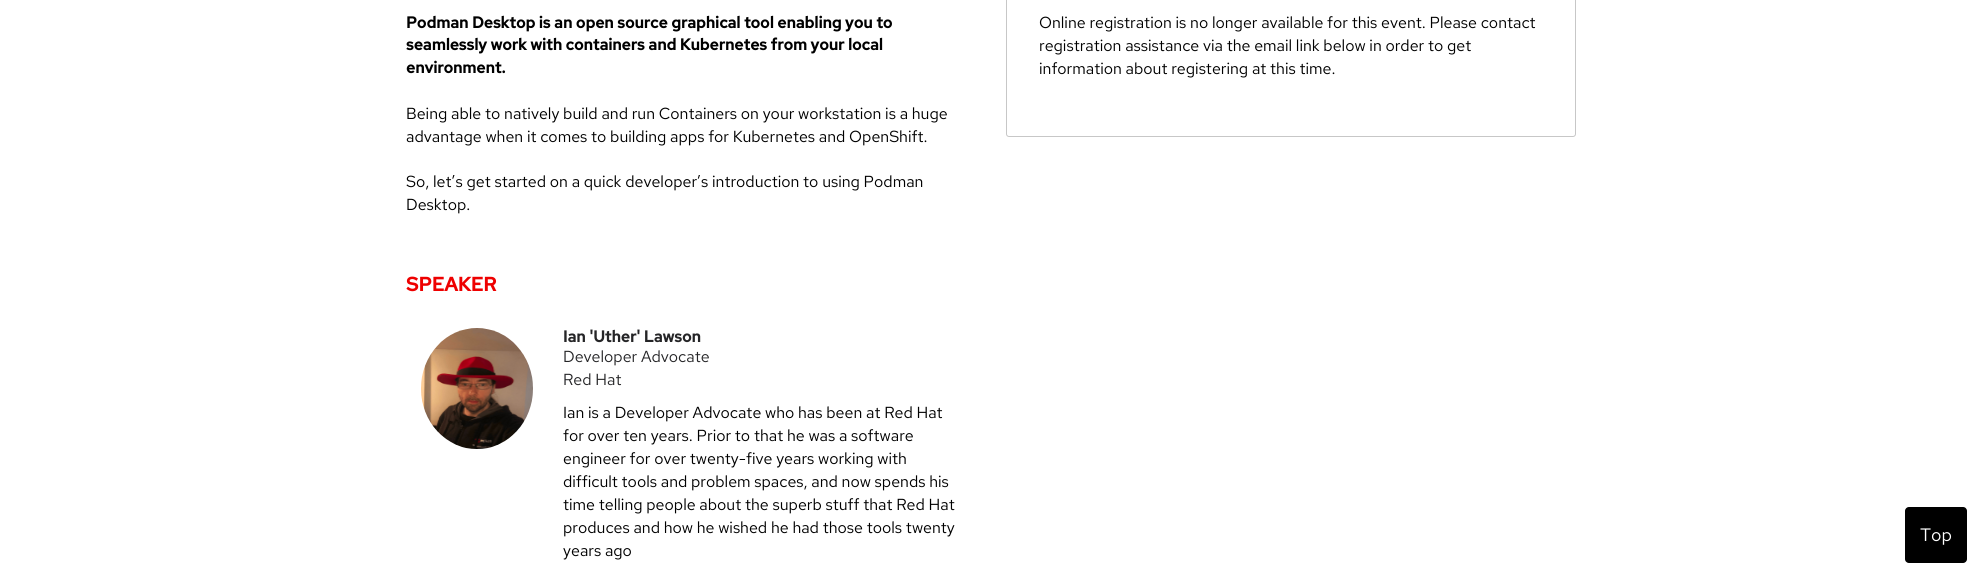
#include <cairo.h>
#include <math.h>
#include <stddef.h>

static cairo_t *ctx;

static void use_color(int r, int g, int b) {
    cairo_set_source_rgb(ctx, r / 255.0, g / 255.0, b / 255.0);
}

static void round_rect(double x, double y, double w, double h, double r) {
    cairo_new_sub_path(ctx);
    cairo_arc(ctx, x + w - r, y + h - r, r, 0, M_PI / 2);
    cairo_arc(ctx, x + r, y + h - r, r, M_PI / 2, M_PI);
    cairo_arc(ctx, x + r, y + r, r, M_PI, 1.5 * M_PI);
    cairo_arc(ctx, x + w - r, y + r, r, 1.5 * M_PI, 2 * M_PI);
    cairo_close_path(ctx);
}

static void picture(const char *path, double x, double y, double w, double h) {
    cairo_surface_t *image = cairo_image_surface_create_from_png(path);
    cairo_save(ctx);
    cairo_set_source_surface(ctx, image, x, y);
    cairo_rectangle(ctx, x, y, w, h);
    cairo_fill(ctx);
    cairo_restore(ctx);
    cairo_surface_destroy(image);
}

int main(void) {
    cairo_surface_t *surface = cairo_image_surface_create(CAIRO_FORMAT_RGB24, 1982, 588);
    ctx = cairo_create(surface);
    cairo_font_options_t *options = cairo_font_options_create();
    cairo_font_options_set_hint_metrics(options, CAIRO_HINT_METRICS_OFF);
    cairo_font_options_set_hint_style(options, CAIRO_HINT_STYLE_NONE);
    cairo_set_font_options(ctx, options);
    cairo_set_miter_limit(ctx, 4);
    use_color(255, 255, 255);
    cairo_paint(ctx);
    cairo_select_font_face(ctx, "Red Hat Text", CAIRO_FONT_SLANT_NORMAL, CAIRO_FONT_WEIGHT_BOLD);
    cairo_set_font_size(ctx, 16);
    use_color(0, 0, 0);
    cairo_move_to(ctx, 406, 28);
    cairo_show_text(ctx, "Podman Desktop is an open source graphical tool enabling you to");
    cairo_move_to(ctx, 406, 50);
    cairo_show_text(ctx, "seamlessly work with containers and Kubernetes from your local");
    cairo_move_to(ctx, 406, 73);
    cairo_show_text(ctx, "environment.");
    cairo_select_font_face(ctx, "Red Hat Text", CAIRO_FONT_SLANT_NORMAL, CAIRO_FONT_WEIGHT_NORMAL);
    cairo_move_to(ctx, 406, 119);
    cairo_show_text(ctx, "Being able to natively build and run Containers on your workstation is a huge");
    cairo_move_to(ctx, 406, 142);
    cairo_show_text(ctx, "advantage when it comes to building apps for Kubernetes and OpenShift.");
    cairo_move_to(ctx, 406, 187);
    cairo_show_text(ctx, "So, let’s get started on a quick developer’s introduction to using Podman");
    cairo_move_to(ctx, 406, 210);
    cairo_show_text(ctx, "Desktop.");
    cairo_select_font_face(ctx, "Red Hat Text", CAIRO_FONT_SLANT_NORMAL, CAIRO_FONT_WEIGHT_BOLD);
    cairo_set_font_size(ctx, 19.5);
    use_color(238, 0, 0);
    cairo_move_to(ctx, 406, 291);
    cairo_show_text(ctx, "SPEAKER");
    picture("img1.png", 421, 328, 112, 121);
    cairo_set_font_size(ctx, 16);
    use_color(37, 37, 39);
    cairo_move_to(ctx, 563, 342);
    cairo_show_text(ctx, "Ian 'Uther' Lawson");
    cairo_select_font_face(ctx, "Red Hat Text", CAIRO_FONT_SLANT_NORMAL, CAIRO_FONT_WEIGHT_NORMAL);
    cairo_move_to(ctx, 563, 362);
    cairo_show_text(ctx, "Developer Advocate");
    cairo_move_to(ctx, 563, 385);
    cairo_show_text(ctx, "Red Hat");
    use_color(0, 0, 0);
    cairo_move_to(ctx, 563, 418);
    cairo_show_text(ctx, "Ian is a Developer Advocate who has been at Red Hat");
    cairo_move_to(ctx, 563, 441);
    cairo_show_text(ctx, "for over ten years. Prior to that he was a software");
    cairo_move_to(ctx, 563, 464);
    cairo_show_text(ctx, "engineer for over twenty-five years working with");
    cairo_move_to(ctx, 563, 487);
    cairo_show_text(ctx, "difficult tools and problem spaces, and now spends his");
    cairo_move_to(ctx, 563, 510);
    cairo_show_text(ctx, "time telling people about the superb stuff that Red Hat");
    cairo_move_to(ctx, 563, 533);
    cairo_show_text(ctx, "produces and how he wished he had those tools twenty");
    cairo_move_to(ctx, 563, 556);
    cairo_show_text(ctx, "years ago");
    round_rect(1006.5, -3.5, 569, 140, 2.5);
    use_color(199, 199, 199);
    cairo_set_line_width(ctx, 1);
    cairo_stroke(ctx);
    use_color(0, 0, 0);
    cairo_move_to(ctx, 1039, 28);
    cairo_show_text(ctx, "Online registration is no longer available for this event. Please contact");
    cairo_move_to(ctx, 1039, 51);
    cairo_show_text(ctx, "registration assistance via the email link below in order to get");
    cairo_move_to(ctx, 1039, 74);
    cairo_show_text(ctx, "information about registering at this time.");
    round_rect(1905, 507, 62, 56, 4);
    cairo_fill(ctx);
    cairo_set_font_size(ctx, 18);
    use_color(255, 255, 255);
    cairo_move_to(ctx, 1920, 541);
    cairo_show_text(ctx, "Top");
    cairo_surface_write_to_png(surface, "result.png");
    cairo_font_options_destroy(options);
    cairo_destroy(ctx);
    cairo_surface_destroy(surface);
    return 0;
}
